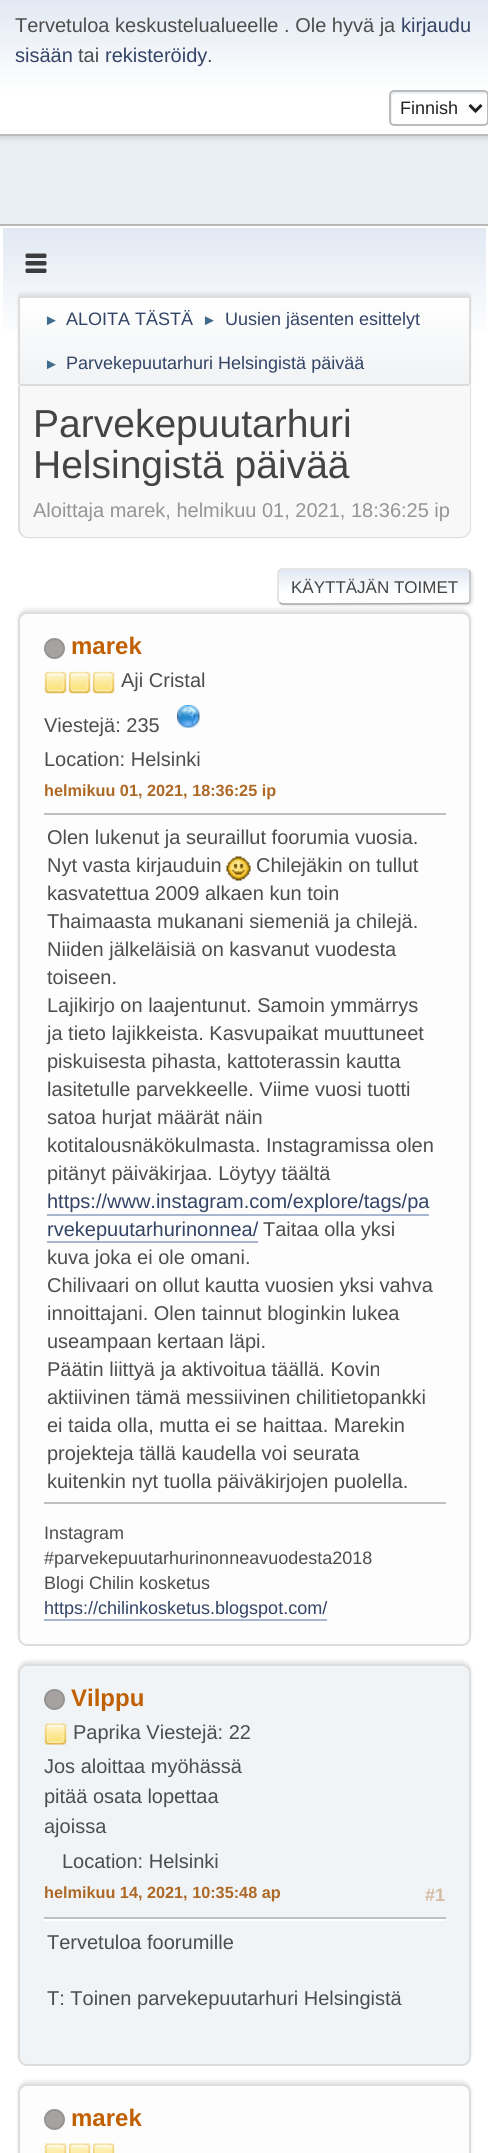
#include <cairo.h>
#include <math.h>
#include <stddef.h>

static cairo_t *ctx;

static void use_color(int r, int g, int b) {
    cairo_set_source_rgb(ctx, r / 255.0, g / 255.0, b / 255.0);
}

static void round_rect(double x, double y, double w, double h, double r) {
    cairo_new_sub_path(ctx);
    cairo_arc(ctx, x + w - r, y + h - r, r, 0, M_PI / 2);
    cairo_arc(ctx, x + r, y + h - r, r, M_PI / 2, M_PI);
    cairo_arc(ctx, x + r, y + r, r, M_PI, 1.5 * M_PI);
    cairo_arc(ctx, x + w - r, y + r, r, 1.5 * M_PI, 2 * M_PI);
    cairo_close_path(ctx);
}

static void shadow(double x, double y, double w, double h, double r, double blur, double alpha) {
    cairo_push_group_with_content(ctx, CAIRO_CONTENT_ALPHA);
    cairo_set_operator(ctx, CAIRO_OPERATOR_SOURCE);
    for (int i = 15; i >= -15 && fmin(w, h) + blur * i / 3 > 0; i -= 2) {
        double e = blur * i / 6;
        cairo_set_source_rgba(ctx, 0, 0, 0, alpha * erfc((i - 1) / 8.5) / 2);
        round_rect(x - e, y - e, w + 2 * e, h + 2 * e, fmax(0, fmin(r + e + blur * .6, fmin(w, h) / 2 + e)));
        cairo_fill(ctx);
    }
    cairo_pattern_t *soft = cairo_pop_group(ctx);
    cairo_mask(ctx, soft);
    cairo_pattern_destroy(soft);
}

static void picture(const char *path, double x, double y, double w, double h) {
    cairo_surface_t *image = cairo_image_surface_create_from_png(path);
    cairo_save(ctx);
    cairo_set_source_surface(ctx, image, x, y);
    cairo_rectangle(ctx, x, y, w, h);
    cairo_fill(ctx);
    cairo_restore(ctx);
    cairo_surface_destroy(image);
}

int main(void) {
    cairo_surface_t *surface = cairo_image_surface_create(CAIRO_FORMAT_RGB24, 488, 2153);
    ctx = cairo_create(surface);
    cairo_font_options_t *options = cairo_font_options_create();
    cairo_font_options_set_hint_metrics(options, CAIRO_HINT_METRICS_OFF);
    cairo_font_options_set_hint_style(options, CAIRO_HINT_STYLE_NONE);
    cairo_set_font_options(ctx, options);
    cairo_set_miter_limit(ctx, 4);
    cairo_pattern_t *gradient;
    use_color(233, 238, 242);
    cairo_paint(ctx);
    use_color(0, 0, 0);
    shadow(0, 2, 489, 135, 0, 3, 0.16);
    gradient = cairo_pattern_create_linear(245, 0, 245, 134);
    cairo_pattern_add_color_stop_rgba(gradient, 0, 0.886, 0.914, 0.953, 1);
    cairo_pattern_add_color_stop_rgba(gradient, 0.7, 1, 1, 1, 1);
    cairo_set_source(ctx, gradient);
    cairo_pattern_destroy(gradient);
    cairo_rectangle(ctx, 0, 0, 488, 134);
    cairo_fill(ctx);
    use_color(187, 187, 187);
    cairo_rectangle(ctx, 0, 134, 488, 2);
    cairo_fill(ctx);
    cairo_select_font_face(ctx, "Liberation Sans", CAIRO_FONT_SLANT_NORMAL, CAIRO_FONT_WEIGHT_NORMAL);
    cairo_set_font_size(ctx, 20);
    use_color(77, 77, 77);
    cairo_move_to(ctx, 15, 32);
    cairo_show_text(ctx, "Tervetuloa keskustelualueelle . Ole hyvä ja");
    use_color(51, 68, 102);
    cairo_move_to(ctx, 401, 32);
    cairo_show_text(ctx, "kirjaudu");
    cairo_move_to(ctx, 15, 62);
    cairo_show_text(ctx, "sisään");
    use_color(77, 77, 77);
    cairo_move_to(ctx, 78, 62);
    cairo_show_text(ctx, "tai");
    use_color(51, 68, 102);
    cairo_move_to(ctx, 105, 62);
    cairo_show_text(ctx, "rekisteröidy");
    use_color(77, 77, 77);
    cairo_move_to(ctx, 207, 62);
    cairo_show_text(ctx, ".");
    use_color(236, 241, 248);
    cairo_new_path(ctx);
    cairo_move_to(ctx, 394, 94);
    cairo_line_to(ctx, 486, 94);
    cairo_line_to(ctx, 488, 95);
    cairo_curve_to(ctx, 488, 93, 487, 92, 485, 92);
    cairo_line_to(ctx, 393, 92);
    cairo_curve_to(ctx, 391, 92, 390, 93, 390, 95);
    cairo_line_to(ctx, 390, 122);
    cairo_curve_to(ctx, 390, 123, 391, 124, 392, 125);
    cairo_line_to(ctx, 392, 111);
    cairo_curve_to(ctx, 392, 109, 391, 94, 394, 94);
    cairo_close_path(ctx);
    cairo_fill(ctx);
    round_rect(390, 91, 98, 34, 4);
    use_color(187, 187, 187);
    cairo_stroke(ctx);
    cairo_new_path(ctx);
    cairo_move_to(ctx, 469.5, 105);
    cairo_line_to(ctx, 475.5, 111);
    cairo_line_to(ctx, 481.5, 105);
    use_color(34, 34, 34);
    cairo_set_line_width(ctx, 3);
    cairo_stroke(ctx);
    cairo_set_font_size(ctx, 18);
    cairo_move_to(ctx, 400, 114);
    cairo_show_text(ctx, "Finnish");
    use_color(255, 255, 255);
    cairo_rectangle(ctx, 0, 226, 488, 1927);
    cairo_fill(ctx);
    use_color(184, 184, 184);
    cairo_rectangle(ctx, 0, 224, 488, 2);
    cairo_fill(ctx);
    gradient = cairo_pattern_create_linear(245, 228, 245, 389);
    cairo_pattern_add_color_stop_rgba(gradient, 0, 0.886, 0.914, 0.953, 1);
    cairo_pattern_add_color_stop_rgba(gradient, 0.7, 1, 1, 1, 1);
    cairo_set_source(ctx, gradient);
    cairo_pattern_destroy(gradient);
    cairo_rectangle(ctx, 3, 228, 483, 103);
    cairo_fill(ctx);
    picture("img1.png", 25, 253, 22, 20);
    use_color(0, 0, 0);
    shadow(18, 293, 453, 90, 3, 1.5, 0.08);
    cairo_save(ctx);
    round_rect(18, 296, 453, 90, 3);
    cairo_clip(ctx);
    gradient = cairo_pattern_create_linear(245, 297, 245, 384);
    cairo_pattern_add_color_stop_rgba(gradient, 0, 1, 1, 1, 1);
    cairo_pattern_add_color_stop_rgba(gradient, 0.95, 0.945, 0.953, 0.961, 1);
    cairo_set_source(ctx, gradient);
    cairo_pattern_destroy(gradient);
    cairo_rectangle(ctx, 18, 297, 453, 87);
    cairo_fill(ctx);
    cairo_restore(ctx);
    round_rect(19, 297, 451, 88, 2);
    use_color(221, 221, 221);
    cairo_set_line_width(ctx, 2);
    cairo_stroke(ctx);
    cairo_set_font_size(ctx, 15);
    use_color(63, 107, 140);
    cairo_move_to(ctx, 44, 325);
    cairo_show_text(ctx, "►");
    cairo_set_font_size(ctx, 18);
    use_color(51, 68, 102);
    cairo_move_to(ctx, 66, 325);
    cairo_show_text(ctx, "ALOITA TÄSTÄ");
    cairo_set_font_size(ctx, 15);
    use_color(63, 107, 140);
    cairo_move_to(ctx, 202, 325);
    cairo_show_text(ctx, "►");
    cairo_set_font_size(ctx, 18);
    use_color(51, 68, 102);
    cairo_move_to(ctx, 225, 325);
    cairo_show_text(ctx, "Uusien jäsenten esittelyt");
    cairo_set_font_size(ctx, 15);
    use_color(63, 107, 140);
    cairo_move_to(ctx, 44, 369);
    cairo_show_text(ctx, "►");
    cairo_set_font_size(ctx, 18);
    use_color(51, 68, 102);
    cairo_move_to(ctx, 66, 369);
    cairo_show_text(ctx, "Parvekepuutarhuri Helsingistä päivää");
    use_color(248, 248, 248);
    cairo_new_path(ctx);
    cairo_move_to(ctx, 18, 386);
    cairo_line_to(ctx, 471, 386);
    cairo_line_to(ctx, 471, 528);
    cairo_curve_to(ctx, 471, 534, 466, 539, 460, 539);
    cairo_line_to(ctx, 29, 539);
    cairo_curve_to(ctx, 23, 539, 18, 534, 18, 528);
    cairo_close_path(ctx);
    cairo_fill(ctx);
    use_color(221, 221, 221);
    cairo_set_fill_rule(ctx, CAIRO_FILL_RULE_EVEN_ODD);
    cairo_new_path(ctx);
    cairo_move_to(ctx, 18, 386);
    cairo_line_to(ctx, 471, 386);
    cairo_line_to(ctx, 471, 528);
    cairo_curve_to(ctx, 471, 534, 466, 538, 460, 538);
    cairo_line_to(ctx, 28, 538);
    cairo_curve_to(ctx, 23, 538, 18, 534, 18, 528);
    cairo_close_path(ctx);
    cairo_move_to(ctx, 20, 386);
    cairo_line_to(ctx, 470, 386);
    cairo_line_to(ctx, 470, 528);
    cairo_curve_to(ctx, 470, 533, 465, 537, 460, 537);
    cairo_line_to(ctx, 28, 537);
    cairo_curve_to(ctx, 24, 537, 20, 533, 20, 528);
    cairo_close_path(ctx);
    cairo_fill(ctx);
    cairo_set_font_size(ctx, 39);
    use_color(68, 68, 68);
    cairo_move_to(ctx, 33, 437);
    cairo_show_text(ctx, "Parvekepuutarhuri");
    cairo_move_to(ctx, 33, 478);
    cairo_show_text(ctx, "Helsingistä päivää");
    cairo_set_font_size(ctx, 20);
    use_color(149, 149, 149);
    cairo_move_to(ctx, 33, 517);
    cairo_show_text(ctx, "Aloittaja marek, helmikuu 01, 2021, 18:36:25 ip");
    use_color(0, 0, 0);
    shadow(279, 570, 194, 36, 5, 1, 0.1);
    cairo_save(ctx);
    cairo_set_fill_rule(ctx, CAIRO_FILL_RULE_WINDING);
    round_rect(278, 569, 193, 36, 5);
    cairo_clip(ctx);
    gradient = cairo_pattern_create_linear(374, 570, 374, 603);
    cairo_pattern_add_color_stop_rgba(gradient, 0, 0.886, 0.914, 0.953, 1);
    cairo_pattern_add_color_stop_rgba(gradient, 0.7, 1, 1, 1, 1);
    cairo_set_source(ctx, gradient);
    cairo_pattern_destroy(gradient);
    cairo_rectangle(ctx, 278, 570, 193, 33);
    cairo_fill(ctx);
    cairo_restore(ctx);
    shadow(18, 609, 453, 1034, 9, 1.5, 0.1);
    cairo_save(ctx);
    cairo_set_fill_rule(ctx, CAIRO_FILL_RULE_WINDING);
    round_rect(278, 569, 193, 36, 5);
    cairo_clip(ctx);
    gradient = cairo_pattern_create_linear(374, 603, 374, 636);
    cairo_pattern_add_color_stop_rgba(gradient, 0, 0.886, 0.914, 0.953, 1);
    cairo_pattern_add_color_stop_rgba(gradient, 0.7, 1, 1, 1, 1);
    cairo_set_source(ctx, gradient);
    cairo_pattern_destroy(gradient);
    cairo_rectangle(ctx, 278, 603, 193, 2);
    cairo_fill(ctx);
    cairo_restore(ctx);
    cairo_new_path(ctx);
    cairo_move_to(ctx, 469, 570.5);
    cairo_curve_to(ctx, 470, 571, 470, 572, 470, 573);
    cairo_line_to(ctx, 470, 600);
    cairo_curve_to(ctx, 470, 601, 470, 602, 469, 602.5);
    use_color(187, 187, 187);
    cairo_set_line_width(ctx, 1.5);
    cairo_stroke(ctx);
    cairo_new_path(ctx);
    cairo_move_to(ctx, 469, 602.5);
    cairo_line_to(ctx, 467, 603.5);
    cairo_line_to(ctx, 313, 604);
    cairo_line_to(ctx, 282, 604);
    cairo_line_to(ctx, 279.5, 602.5);
    use_color(170, 170, 170);
    cairo_stroke(ctx);
    cairo_new_path(ctx);
    cairo_move_to(ctx, 279.5, 602.5);
    cairo_curve_to(ctx, 277, 600.5, 278, 589.5, 278, 586.5);
    cairo_line_to(ctx, 278, 577.5);
    cairo_curve_to(ctx, 278, 574.5, 277.5, 569.5, 282, 569);
    cairo_line_to(ctx, 466.5, 569);
    cairo_line_to(ctx, 469, 570.5);
    use_color(221, 221, 221);
    cairo_stroke(ctx);
    cairo_set_font_size(ctx, 17);
    use_color(68, 68, 68);
    cairo_move_to(ctx, 291, 593);
    cairo_show_text(ctx, "KÄYTTÄJÄN TOIMET");
    use_color(253, 253, 253);
    round_rect(19, 613, 451, 1032, 8);
    cairo_fill_preserve(ctx);
    use_color(221, 221, 221);
    cairo_set_line_width(ctx, 2);
    cairo_stroke(ctx);
    use_color(167, 162, 162);
    cairo_arc(ctx, 54.5, 648.5, 9.5, 0, 2 * M_PI);
    cairo_fill_preserve(ctx);
    use_color(150, 146, 146);
    cairo_stroke(ctx);
    cairo_select_font_face(ctx, "Liberation Sans", CAIRO_FONT_SLANT_NORMAL, CAIRO_FONT_WEIGHT_BOLD);
    cairo_set_font_size(ctx, 24);
    use_color(192, 96, 2);
    cairo_move_to(ctx, 71, 654);
    cairo_show_text(ctx, "marek");
    picture("img2.png", 44, 671, 23, 23);
    picture("img2.png", 68, 671, 23, 23);
    picture("img2.png", 92, 671, 23, 23);
    cairo_select_font_face(ctx, "Liberation Sans", CAIRO_FONT_SLANT_NORMAL, CAIRO_FONT_WEIGHT_NORMAL);
    cairo_set_font_size(ctx, 20);
    use_color(77, 77, 77);
    cairo_move_to(ctx, 121, 687);
    cairo_show_text(ctx, "Aji Cristal");
    cairo_move_to(ctx, 44, 732);
    cairo_show_text(ctx, "Viestejä: 235");
    picture("img3.png", 177, 705, 23, 23);
    cairo_move_to(ctx, 44, 766);
    cairo_show_text(ctx, "Location: Helsinki");
    cairo_select_font_face(ctx, "Liberation Sans", CAIRO_FONT_SLANT_NORMAL, CAIRO_FONT_WEIGHT_BOLD);
    cairo_set_font_size(ctx, 16.25);
    use_color(173, 104, 37);
    cairo_move_to(ctx, 44, 796);
    cairo_show_text(ctx, "helmikuu 01, 2021, 18:36:25 ip");
    use_color(191, 191, 191);
    cairo_rectangle(ctx, 44, 813, 402, 2);
    cairo_fill(ctx);
    cairo_select_font_face(ctx, "Liberation Sans", CAIRO_FONT_SLANT_NORMAL, CAIRO_FONT_WEIGHT_NORMAL);
    cairo_set_font_size(ctx, 20);
    use_color(77, 77, 77);
    cairo_move_to(ctx, 47, 844);
    cairo_show_text(ctx, "Olen lukenut ja seuraillut foorumia vuosia.");
    cairo_move_to(ctx, 47, 872);
    cairo_show_text(ctx, "Nyt vasta kirjauduin");
    picture("img4.png", 226, 856, 25, 25);
    cairo_move_to(ctx, 256, 872);
    cairo_show_text(ctx, "Chilejäkin on tullut");
    cairo_move_to(ctx, 47, 900);
    cairo_show_text(ctx, "kasvatettua 2009 alkaen kun toin");
    cairo_move_to(ctx, 47, 928);
    cairo_show_text(ctx, "Thaimaasta mukanani siemeniä ja chilejä.");
    cairo_move_to(ctx, 47, 956);
    cairo_show_text(ctx, "Niiden jälkeläisiä on kasvanut vuodesta");
    cairo_move_to(ctx, 47, 984);
    cairo_show_text(ctx, "toiseen.");
    cairo_move_to(ctx, 47, 1012);
    cairo_show_text(ctx, "Lajikirjo on laajentunut. Samoin ymmärrys");
    cairo_move_to(ctx, 47, 1040);
    cairo_show_text(ctx, "ja tieto lajikkeista. Kasvupaikat muuttuneet");
    cairo_move_to(ctx, 47, 1068);
    cairo_show_text(ctx, "piskuisesta pihasta, kattoterassin kautta");
    cairo_move_to(ctx, 47, 1096);
    cairo_show_text(ctx, "lasitetulle parvekkeelle. Viime vuosi tuotti");
    cairo_move_to(ctx, 47, 1124);
    cairo_show_text(ctx, "satoa hurjat määrät näin");
    cairo_move_to(ctx, 47, 1152);
    cairo_show_text(ctx, "kotitalousnäkökulmasta. Instagramissa olen");
    cairo_move_to(ctx, 47, 1180);
    cairo_show_text(ctx, "pitänyt päiväkirjaa. Löytyy täältä");
    use_color(51, 68, 102);
    cairo_move_to(ctx, 47, 1208);
    cairo_show_text(ctx, "https://www.instagram.com/explore/tags/pa");
    use_color(168, 182, 207);
    cairo_rectangle(ctx, 47, 1214, 382, 2);
    cairo_fill(ctx);
    use_color(51, 68, 102);
    cairo_move_to(ctx, 47, 1236);
    cairo_show_text(ctx, "rvekepuutarhurinonnea/");
    use_color(168, 182, 207);
    cairo_rectangle(ctx, 47, 1241, 211, 2);
    cairo_fill(ctx);
    use_color(77, 77, 77);
    cairo_move_to(ctx, 263, 1236);
    cairo_show_text(ctx, "Taitaa olla yksi");
    cairo_move_to(ctx, 47, 1264);
    cairo_show_text(ctx, "kuva joka ei ole omani.");
    cairo_move_to(ctx, 47, 1292);
    cairo_show_text(ctx, "Chilivaari on ollut kautta vuosien yksi vahva");
    cairo_move_to(ctx, 47, 1320);
    cairo_show_text(ctx, "innoittajani. Olen tainnut bloginkin lukea");
    cairo_move_to(ctx, 47, 1348);
    cairo_show_text(ctx, "useampaan kertaan läpi.");
    cairo_move_to(ctx, 47, 1376);
    cairo_show_text(ctx, "Päätin liittyä ja aktivoitua täällä. Kovin");
    cairo_move_to(ctx, 47, 1404);
    cairo_show_text(ctx, "aktiivinen tämä messiivinen chilitietopankki");
    cairo_move_to(ctx, 47, 1432);
    cairo_show_text(ctx, "ei taida olla, mutta ei se haittaa. Marekin");
    cairo_move_to(ctx, 47, 1460);
    cairo_show_text(ctx, "projekteja tällä kaudella voi seurata");
    cairo_move_to(ctx, 47, 1488);
    cairo_show_text(ctx, "kuitenkin nyt tuolla päiväkirjojen puolella.");
    use_color(191, 191, 191);
    cairo_rectangle(ctx, 44, 1502, 402, 2);
    cairo_fill(ctx);
    cairo_set_font_size(ctx, 18);
    use_color(77, 77, 77);
    cairo_move_to(ctx, 44, 1539);
    cairo_show_text(ctx, "Instagram");
    cairo_move_to(ctx, 44, 1564);
    cairo_show_text(ctx, "#parvekepuutarhurinonneavuodesta2018");
    cairo_move_to(ctx, 44, 1589);
    cairo_show_text(ctx, "Blogi Chilin kosketus");
    use_color(51, 68, 102);
    cairo_move_to(ctx, 44, 1614);
    cairo_show_text(ctx, "https://chilinkosketus.blogspot.com/");
    use_color(168, 182, 207);
    cairo_rectangle(ctx, 44, 1619, 283, 2);
    cairo_fill(ctx);
    use_color(0, 0, 0);
    shadow(18, 1661, 453, 402, 9, 1.5, 0.1);
    use_color(240, 244, 247);
    round_rect(19, 1665, 451, 400, 8);
    cairo_fill_preserve(ctx);
    use_color(221, 221, 221);
    cairo_stroke(ctx);
    use_color(167, 162, 162);
    cairo_arc(ctx, 54.5, 1699.5, 9.5, 0, 2 * M_PI);
    cairo_fill_preserve(ctx);
    use_color(150, 146, 146);
    cairo_stroke(ctx);
    cairo_select_font_face(ctx, "Liberation Sans", CAIRO_FONT_SLANT_NORMAL, CAIRO_FONT_WEIGHT_BOLD);
    cairo_set_font_size(ctx, 24);
    use_color(192, 96, 2);
    cairo_move_to(ctx, 71, 1706);
    cairo_show_text(ctx, "Vilppu");
    picture("img5.png", 44, 1723, 23, 22);
    cairo_select_font_face(ctx, "Liberation Sans", CAIRO_FONT_SLANT_NORMAL, CAIRO_FONT_WEIGHT_NORMAL);
    cairo_set_font_size(ctx, 20);
    use_color(77, 77, 77);
    cairo_move_to(ctx, 73, 1739);
    cairo_show_text(ctx, "Paprika Viestejä: 22");
    cairo_move_to(ctx, 44, 1773);
    cairo_show_text(ctx, "Jos aloittaa myöhässä");
    cairo_move_to(ctx, 44, 1803);
    cairo_show_text(ctx, "pitää osata lopettaa");
    cairo_move_to(ctx, 44, 1833);
    cairo_show_text(ctx, "ajoissa");
    cairo_move_to(ctx, 62, 1868);
    cairo_show_text(ctx, "Location: Helsinki");
    cairo_select_font_face(ctx, "Liberation Sans", CAIRO_FONT_SLANT_NORMAL, CAIRO_FONT_WEIGHT_BOLD);
    cairo_set_font_size(ctx, 16.25);
    use_color(173, 104, 37);
    cairo_move_to(ctx, 44, 1898);
    cairo_show_text(ctx, "helmikuu 14, 2021, 10:35:48 ap");
    cairo_set_font_size(ctx, 18);
    use_color(213, 188, 163);
    cairo_move_to(ctx, 425, 1901);
    cairo_show_text(ctx, "#1");
    use_color(255, 255, 255);
    cairo_rectangle(ctx, 44, 1919, 402, 2);
    cairo_fill(ctx);
    use_color(191, 191, 191);
    cairo_rectangle(ctx, 44, 1917, 402, 2);
    cairo_fill(ctx);
    cairo_select_font_face(ctx, "Liberation Sans", CAIRO_FONT_SLANT_NORMAL, CAIRO_FONT_WEIGHT_NORMAL);
    cairo_set_font_size(ctx, 20);
    use_color(77, 77, 77);
    cairo_move_to(ctx, 47, 1949);
    cairo_show_text(ctx, "Tervetuloa foorumille");
    cairo_move_to(ctx, 47, 2005);
    cairo_show_text(ctx, "T: Toinen parvekepuutarhuri Helsingistä");
    use_color(0, 0, 0);
    shadow(18, 2081, 453, 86, 9, 1.5, 0.1);
    use_color(253, 253, 253);
    round_rect(19, 2085, 451, 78, 8);
    cairo_fill_preserve(ctx);
    use_color(221, 221, 221);
    cairo_stroke(ctx);
    use_color(167, 162, 162);
    cairo_arc(ctx, 54.5, 2119.5, 9.5, 0, 2 * M_PI);
    cairo_fill_preserve(ctx);
    use_color(150, 146, 146);
    cairo_stroke(ctx);
    cairo_select_font_face(ctx, "Liberation Sans", CAIRO_FONT_SLANT_NORMAL, CAIRO_FONT_WEIGHT_BOLD);
    cairo_set_font_size(ctx, 24);
    use_color(192, 96, 2);
    cairo_move_to(ctx, 71, 2126);
    cairo_show_text(ctx, "marek");
    picture("img6.png", 44, 2143, 23, 10);
    picture("img6.png", 68, 2143, 23, 10);
    picture("img6.png", 92, 2143, 23, 10);
    cairo_surface_write_to_png(surface, "result.png");
    cairo_font_options_destroy(options);
    cairo_destroy(ctx);
    cairo_surface_destroy(surface);
    return 0;
}
